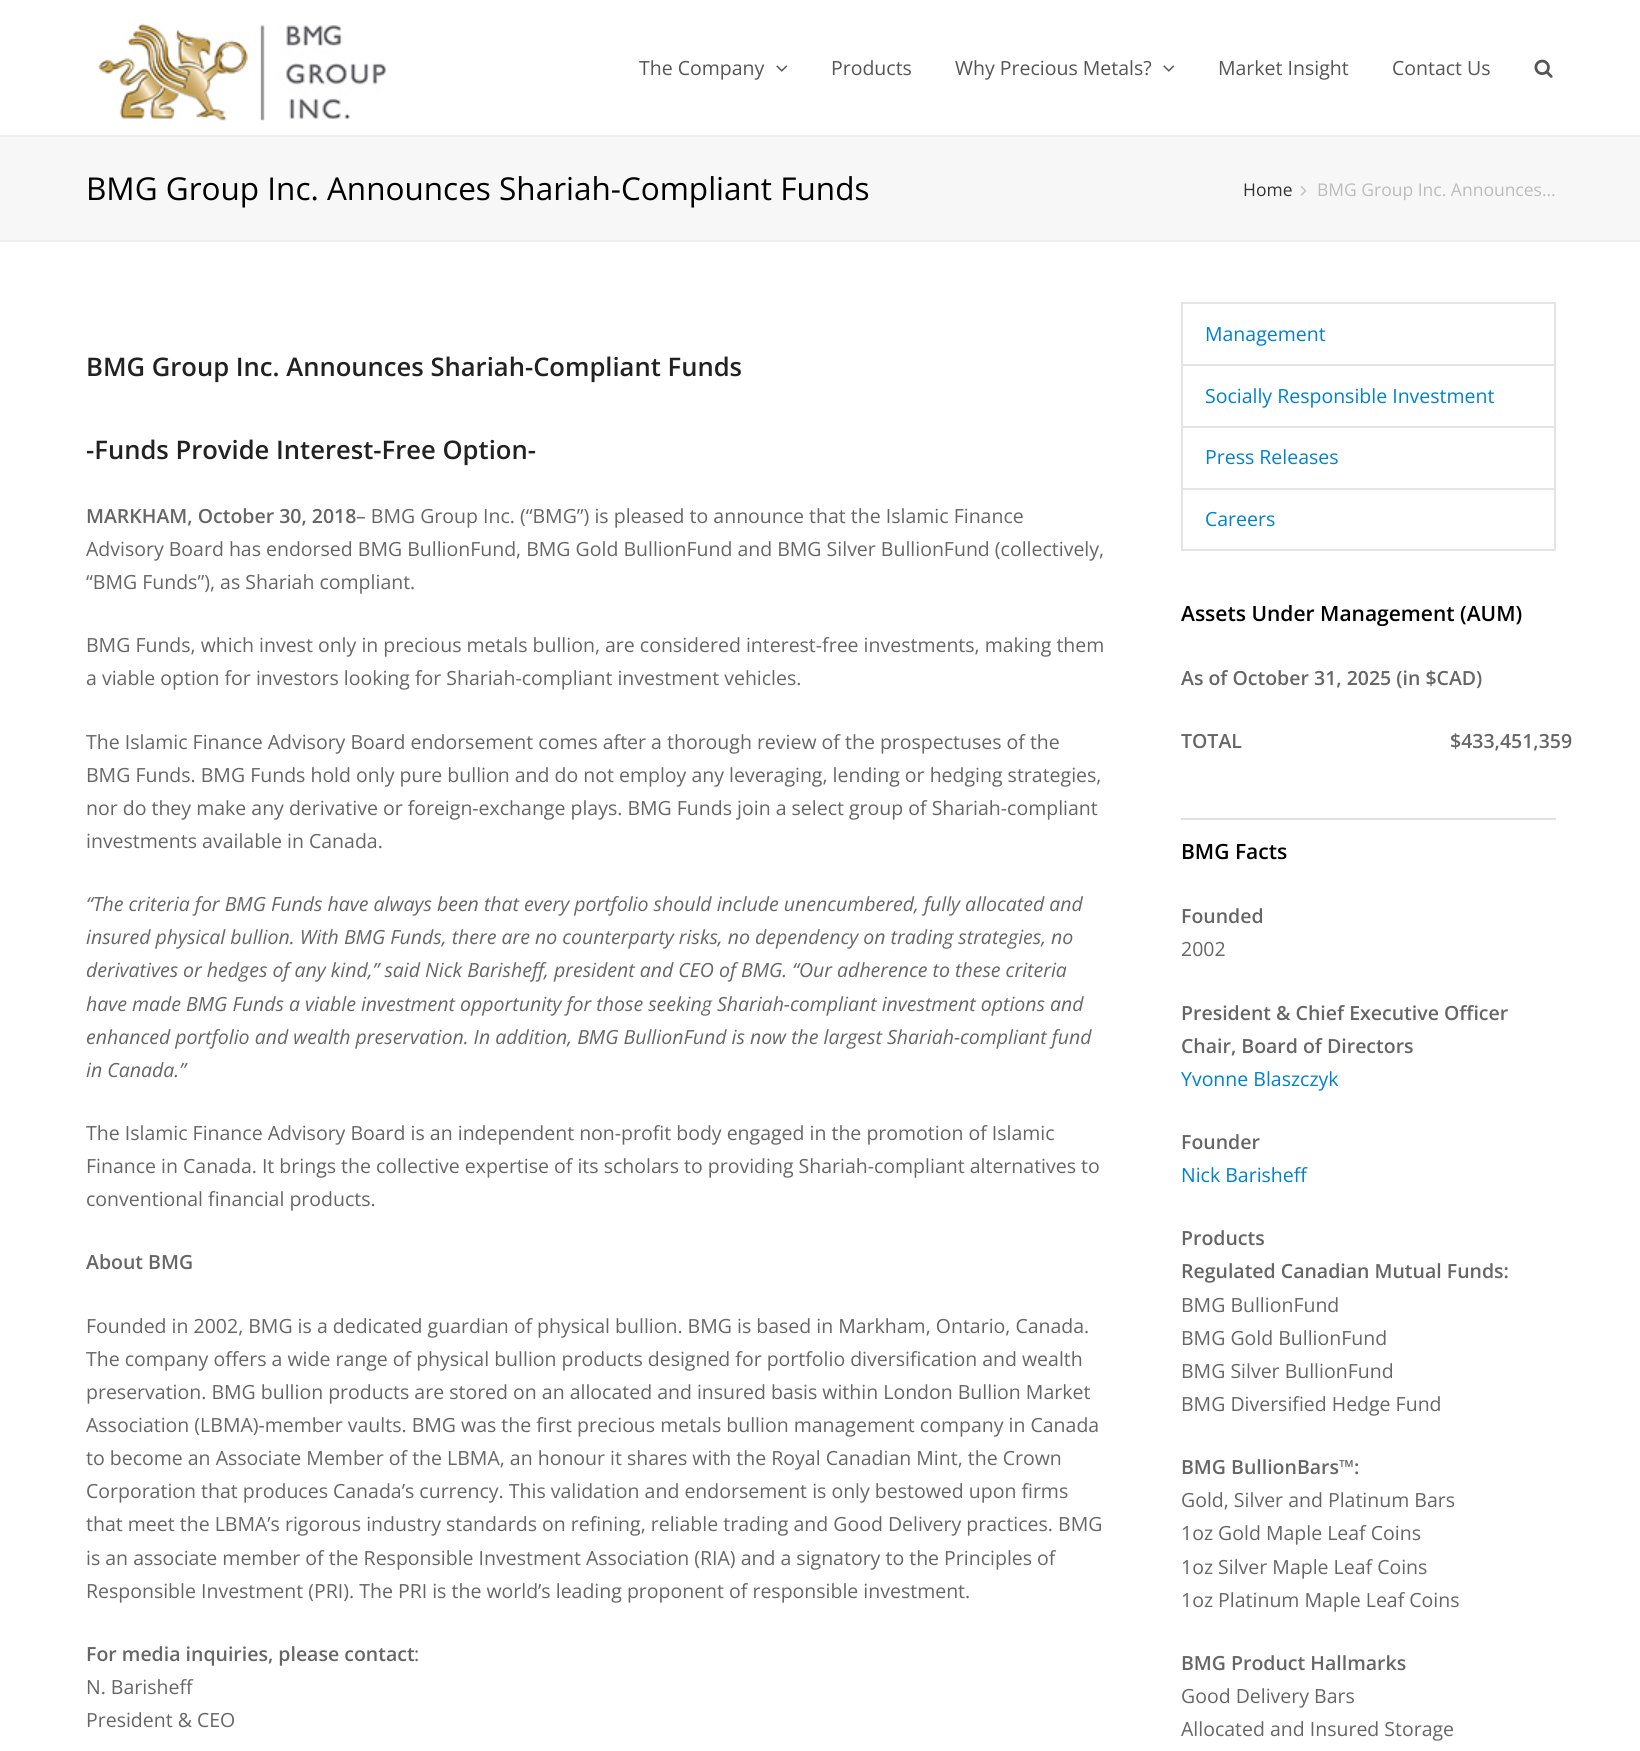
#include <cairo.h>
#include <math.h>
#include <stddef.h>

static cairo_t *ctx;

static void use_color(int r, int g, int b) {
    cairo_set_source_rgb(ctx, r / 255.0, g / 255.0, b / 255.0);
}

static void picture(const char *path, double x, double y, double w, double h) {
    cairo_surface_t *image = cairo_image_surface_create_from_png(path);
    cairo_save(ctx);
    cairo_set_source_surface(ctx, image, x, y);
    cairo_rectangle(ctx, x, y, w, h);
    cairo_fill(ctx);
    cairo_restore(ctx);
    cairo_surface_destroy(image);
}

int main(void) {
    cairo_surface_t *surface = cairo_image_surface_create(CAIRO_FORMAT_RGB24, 1640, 1751);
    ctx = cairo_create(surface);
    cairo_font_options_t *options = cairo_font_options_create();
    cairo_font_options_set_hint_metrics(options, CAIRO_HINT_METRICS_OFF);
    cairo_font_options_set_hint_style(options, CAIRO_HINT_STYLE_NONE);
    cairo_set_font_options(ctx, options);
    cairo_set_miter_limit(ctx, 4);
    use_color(255, 255, 255);
    cairo_paint(ctx);
    picture("img1.png", 98, 23, 288, 98);
    cairo_select_font_face(ctx, "Open Sans", CAIRO_FONT_SLANT_NORMAL, CAIRO_FONT_WEIGHT_NORMAL);
    cairo_set_font_size(ctx, 19.5);
    use_color(85, 85, 85);
    cairo_move_to(ctx, 639, 75);
    cairo_show_text(ctx, "The Company");
    picture("img2.png", 776, 65, 12, 7);
    cairo_move_to(ctx, 831, 75);
    cairo_show_text(ctx, "Products");
    cairo_move_to(ctx, 955, 75);
    cairo_show_text(ctx, "Why Precious Metals?");
    picture("img2.png", 1163, 65, 12, 7);
    cairo_move_to(ctx, 1218, 75);
    cairo_show_text(ctx, "Market Insight");
    cairo_move_to(ctx, 1392, 75);
    cairo_show_text(ctx, "Contact Us");
    picture("img3.png", 1534, 59, 19, 19);
    use_color(247, 247, 247);
    cairo_rectangle(ctx, 0, 137, 1640, 103);
    cairo_fill(ctx);
    use_color(238, 238, 238);
    cairo_rectangle(ctx, 0, 135, 1640, 2);
    cairo_fill(ctx);
    cairo_rectangle(ctx, 0, 240, 1640, 2);
    cairo_fill(ctx);
    cairo_set_font_size(ctx, 31.5);
    use_color(0, 0, 0);
    cairo_move_to(ctx, 86, 200);
    cairo_show_text(ctx, "BMG Group Inc. Announces Shariah-Compliant Funds");
    cairo_set_font_size(ctx, 17.5);
    use_color(51, 51, 51);
    cairo_move_to(ctx, 1243, 196);
    cairo_show_text(ctx, "Home");
    picture("img4.png", 1300, 186, 7, 10);
    use_color(188, 188, 188);
    cairo_move_to(ctx, 1317, 196);
    cairo_show_text(ctx, "BMG Group Inc. Announces…");
    cairo_select_font_face(ctx, "Open Sans SemiBold", CAIRO_FONT_SLANT_NORMAL, CAIRO_FONT_WEIGHT_NORMAL);
    cairo_set_font_size(ctx, 25.6);
    use_color(34, 34, 34);
    cairo_move_to(ctx, 86, 376);
    cairo_show_text(ctx, "BMG Group Inc. Announces Shariah-Compliant Funds");
    cairo_move_to(ctx, 86, 459);
    cairo_show_text(ctx, "-Funds Provide Interest-Free Option-");
    cairo_set_font_size(ctx, 19.5);
    use_color(102, 102, 102);
    cairo_move_to(ctx, 86, 523);
    cairo_show_text(ctx, "MARKHAM, October 30, 2018");
    cairo_select_font_face(ctx, "Open Sans", CAIRO_FONT_SLANT_NORMAL, CAIRO_FONT_WEIGHT_NORMAL);
    cairo_move_to(ctx, 356, 523);
    cairo_show_text(ctx, "– BMG Group Inc. (“BMG”) is pleased to announce that the Islamic Finance");
    cairo_move_to(ctx, 86, 556);
    cairo_show_text(ctx, "Advisory Board has endorsed BMG BullionFund, BMG Gold BullionFund and BMG Silver BullionFund (collectively,");
    cairo_move_to(ctx, 86, 589);
    cairo_show_text(ctx, "“BMG Funds”), as Shariah compliant.");
    cairo_move_to(ctx, 86, 652);
    cairo_show_text(ctx, "BMG Funds, which invest only in precious metals bullion, are considered interest-free investments, making them");
    cairo_move_to(ctx, 86, 685);
    cairo_show_text(ctx, "a viable option for investors looking for Shariah-compliant investment vehicles.");
    cairo_move_to(ctx, 86, 749);
    cairo_show_text(ctx, "The Islamic Finance Advisory Board endorsement comes after a thorough review of the prospectuses of the");
    cairo_move_to(ctx, 86, 782);
    cairo_show_text(ctx, "BMG Funds. BMG Funds hold only pure bullion and do not employ any leveraging, lending or hedging strategies,");
    cairo_move_to(ctx, 86, 815);
    cairo_show_text(ctx, "nor do they make any derivative or foreign-exchange plays. BMG Funds join a select group of Shariah-compliant");
    cairo_move_to(ctx, 86, 848);
    cairo_show_text(ctx, "investments available in Canada.");
    cairo_select_font_face(ctx, "Open Sans", CAIRO_FONT_SLANT_ITALIC, CAIRO_FONT_WEIGHT_NORMAL);
    cairo_move_to(ctx, 86, 911);
    cairo_show_text(ctx, "“The criteria for BMG Funds have always been that every portfolio should include unencumbered, fully allocated and");
    cairo_move_to(ctx, 86, 944);
    cairo_show_text(ctx, "insured physical bullion. With BMG Funds, there are no counterparty risks, no dependency on trading strategies, no");
    cairo_move_to(ctx, 86, 977);
    cairo_show_text(ctx, "derivatives or hedges of any kind,” said Nick Barisheff, president and CEO of BMG. “Our adherence to these criteria");
    cairo_move_to(ctx, 86, 1011);
    cairo_show_text(ctx, "have made BMG Funds a viable investment opportunity for those seeking Shariah-compliant investment options and");
    cairo_move_to(ctx, 86, 1044);
    cairo_show_text(ctx, "enhanced portfolio and wealth preservation. In addition, BMG BullionFund is now the largest Shariah-compliant fund");
    cairo_move_to(ctx, 86, 1077);
    cairo_show_text(ctx, "in Canada.”");
    cairo_select_font_face(ctx, "Open Sans", CAIRO_FONT_SLANT_NORMAL, CAIRO_FONT_WEIGHT_NORMAL);
    cairo_move_to(ctx, 86, 1140);
    cairo_show_text(ctx, "The Islamic Finance Advisory Board is an independent non-profit body engaged in the promotion of Islamic");
    cairo_move_to(ctx, 86, 1173);
    cairo_show_text(ctx, "Finance in Canada. It brings the collective expertise of its scholars to providing Shariah-compliant alternatives to");
    cairo_move_to(ctx, 86, 1206);
    cairo_show_text(ctx, "conventional financial products.");
    cairo_select_font_face(ctx, "Open Sans SemiBold", CAIRO_FONT_SLANT_NORMAL, CAIRO_FONT_WEIGHT_NORMAL);
    cairo_move_to(ctx, 86, 1269);
    cairo_show_text(ctx, "About BMG");
    cairo_select_font_face(ctx, "Open Sans", CAIRO_FONT_SLANT_NORMAL, CAIRO_FONT_WEIGHT_NORMAL);
    cairo_move_to(ctx, 86, 1333);
    cairo_show_text(ctx, "Founded in 2002, BMG is a dedicated guardian of physical bullion. BMG is based in Markham, Ontario, Canada.");
    cairo_move_to(ctx, 86, 1366);
    cairo_show_text(ctx, "The company offers a wide range of physical bullion products designed for portfolio diversification and wealth");
    cairo_move_to(ctx, 86, 1399);
    cairo_show_text(ctx, "preservation. BMG bullion products are stored on an allocated and insured basis within London Bullion Market");
    cairo_move_to(ctx, 86, 1432);
    cairo_show_text(ctx, "Association (LBMA)-member vaults. BMG was the first precious metals bullion management company in Canada");
    cairo_move_to(ctx, 86, 1465);
    cairo_show_text(ctx, "to become an Associate Member of the LBMA, an honour it shares with the Royal Canadian Mint, the Crown");
    cairo_move_to(ctx, 86, 1498);
    cairo_show_text(ctx, "Corporation that produces Canada’s currency. This validation and endorsement is only bestowed upon firms");
    cairo_move_to(ctx, 86, 1531);
    cairo_show_text(ctx, "that meet the LBMA’s rigorous industry standards on refining, reliable trading and Good Delivery practices. BMG");
    cairo_move_to(ctx, 86, 1565);
    cairo_show_text(ctx, "is an associate member of the Responsible Investment Association (RIA) and a signatory to the Principles of");
    cairo_move_to(ctx, 86, 1598);
    cairo_show_text(ctx, "Responsible Investment (PRI). The PRI is the world’s leading proponent of responsible investment.");
    cairo_select_font_face(ctx, "Open Sans SemiBold", CAIRO_FONT_SLANT_NORMAL, CAIRO_FONT_WEIGHT_NORMAL);
    cairo_move_to(ctx, 86, 1661);
    cairo_show_text(ctx, "For media inquiries, please contact");
    cairo_select_font_face(ctx, "Open Sans", CAIRO_FONT_SLANT_NORMAL, CAIRO_FONT_WEIGHT_NORMAL);
    cairo_move_to(ctx, 414, 1661);
    cairo_show_text(ctx, ":");
    cairo_move_to(ctx, 86, 1694);
    cairo_show_text(ctx, "N. Barisheff");
    cairo_move_to(ctx, 86, 1727);
    cairo_show_text(ctx, "President & CEO");
    cairo_rectangle(ctx, 1182, 303, 373, 62);
    use_color(228, 228, 228);
    cairo_stroke(ctx);
    use_color(0, 129, 204);
    cairo_move_to(ctx, 1205, 341);
    cairo_show_text(ctx, "Management");
    use_color(228, 228, 228);
    cairo_rectangle(ctx, 1554, 366, 2, 123);
    cairo_fill(ctx);
    cairo_rectangle(ctx, 1181, 426, 375, 2);
    cairo_fill(ctx);
    cairo_rectangle(ctx, 1181, 366, 2, 62);
    cairo_fill(ctx);
    use_color(0, 129, 204);
    cairo_move_to(ctx, 1205, 403);
    cairo_show_text(ctx, "Socially Responsible Investment");
    use_color(228, 228, 228);
    cairo_rectangle(ctx, 1181, 488, 375, 2);
    cairo_fill(ctx);
    cairo_rectangle(ctx, 1181, 428, 2, 61);
    cairo_fill(ctx);
    use_color(0, 129, 204);
    cairo_move_to(ctx, 1205, 464);
    cairo_show_text(ctx, "Press Releases");
    use_color(228, 228, 228);
    cairo_rectangle(ctx, 1554, 489, 2, 62);
    cairo_fill(ctx);
    cairo_rectangle(ctx, 1181, 549, 375, 2);
    cairo_fill(ctx);
    cairo_rectangle(ctx, 1181, 489, 2, 62);
    cairo_fill(ctx);
    use_color(0, 129, 204);
    cairo_move_to(ctx, 1205, 526);
    cairo_show_text(ctx, "Careers");
    cairo_select_font_face(ctx, "Open Sans SemiBold", CAIRO_FONT_SLANT_NORMAL, CAIRO_FONT_WEIGHT_NORMAL);
    cairo_set_font_size(ctx, 21);
    use_color(0, 0, 0);
    cairo_move_to(ctx, 1181, 621);
    cairo_show_text(ctx, "Assets Under Management (AUM)");
    cairo_set_font_size(ctx, 19.5);
    use_color(102, 102, 102);
    cairo_move_to(ctx, 1181, 685);
    cairo_show_text(ctx, "As of October 31, 2025 (in $CAD)");
    cairo_move_to(ctx, 1181, 748);
    cairo_show_text(ctx, "TOTAL");
    cairo_move_to(ctx, 1450, 748);
    cairo_show_text(ctx, "$433,451,359");
    use_color(224, 224, 224);
    cairo_rectangle(ctx, 1181, 818, 375, 2);
    cairo_fill(ctx);
    cairo_set_font_size(ctx, 21);
    use_color(0, 0, 0);
    cairo_move_to(ctx, 1181, 859);
    cairo_show_text(ctx, "BMG Facts");
    cairo_set_font_size(ctx, 19.5);
    use_color(102, 102, 102);
    cairo_move_to(ctx, 1181, 923);
    cairo_show_text(ctx, "Founded");
    cairo_select_font_face(ctx, "Open Sans", CAIRO_FONT_SLANT_NORMAL, CAIRO_FONT_WEIGHT_NORMAL);
    cairo_move_to(ctx, 1181, 956);
    cairo_show_text(ctx, "2002");
    cairo_select_font_face(ctx, "Open Sans SemiBold", CAIRO_FONT_SLANT_NORMAL, CAIRO_FONT_WEIGHT_NORMAL);
    cairo_move_to(ctx, 1181, 1020);
    cairo_show_text(ctx, "President & Chief Executive Officer");
    cairo_move_to(ctx, 1181, 1053);
    cairo_show_text(ctx, "Chair, Board of Directors");
    cairo_select_font_face(ctx, "Open Sans", CAIRO_FONT_SLANT_NORMAL, CAIRO_FONT_WEIGHT_NORMAL);
    use_color(0, 129, 204);
    cairo_move_to(ctx, 1181, 1086);
    cairo_show_text(ctx, "Yvonne Blaszczyk");
    cairo_select_font_face(ctx, "Open Sans SemiBold", CAIRO_FONT_SLANT_NORMAL, CAIRO_FONT_WEIGHT_NORMAL);
    use_color(102, 102, 102);
    cairo_move_to(ctx, 1181, 1149);
    cairo_show_text(ctx, "Founder");
    cairo_select_font_face(ctx, "Open Sans", CAIRO_FONT_SLANT_NORMAL, CAIRO_FONT_WEIGHT_NORMAL);
    use_color(0, 129, 204);
    cairo_move_to(ctx, 1181, 1182);
    cairo_show_text(ctx, "Nick Barisheff");
    cairo_select_font_face(ctx, "Open Sans SemiBold", CAIRO_FONT_SLANT_NORMAL, CAIRO_FONT_WEIGHT_NORMAL);
    use_color(102, 102, 102);
    cairo_move_to(ctx, 1181, 1245);
    cairo_show_text(ctx, "Products");
    cairo_move_to(ctx, 1181, 1278);
    cairo_show_text(ctx, "Regulated Canadian Mutual Funds:");
    cairo_select_font_face(ctx, "Open Sans", CAIRO_FONT_SLANT_NORMAL, CAIRO_FONT_WEIGHT_NORMAL);
    cairo_move_to(ctx, 1181, 1312);
    cairo_show_text(ctx, "BMG BullionFund");
    cairo_move_to(ctx, 1181, 1345);
    cairo_show_text(ctx, "BMG Gold BullionFund");
    cairo_move_to(ctx, 1181, 1378);
    cairo_show_text(ctx, "BMG Silver BullionFund");
    cairo_move_to(ctx, 1181, 1411);
    cairo_show_text(ctx, "BMG Diversified Hedge Fund");
    cairo_select_font_face(ctx, "Open Sans SemiBold", CAIRO_FONT_SLANT_NORMAL, CAIRO_FONT_WEIGHT_NORMAL);
    cairo_move_to(ctx, 1181, 1474);
    cairo_show_text(ctx, "BMG BullionBars™:");
    cairo_select_font_face(ctx, "Open Sans", CAIRO_FONT_SLANT_NORMAL, CAIRO_FONT_WEIGHT_NORMAL);
    cairo_move_to(ctx, 1181, 1507);
    cairo_show_text(ctx, "Gold, Silver and Platinum Bars");
    cairo_move_to(ctx, 1181, 1540);
    cairo_show_text(ctx, "1oz Gold Maple Leaf Coins");
    cairo_move_to(ctx, 1181, 1574);
    cairo_show_text(ctx, "1oz Silver Maple Leaf Coins");
    cairo_move_to(ctx, 1181, 1607);
    cairo_show_text(ctx, "1oz Platinum Maple Leaf Coins");
    cairo_select_font_face(ctx, "Open Sans SemiBold", CAIRO_FONT_SLANT_NORMAL, CAIRO_FONT_WEIGHT_NORMAL);
    cairo_move_to(ctx, 1181, 1670);
    cairo_show_text(ctx, "BMG Product Hallmarks");
    cairo_select_font_face(ctx, "Open Sans", CAIRO_FONT_SLANT_NORMAL, CAIRO_FONT_WEIGHT_NORMAL);
    cairo_move_to(ctx, 1181, 1703);
    cairo_show_text(ctx, "Good Delivery Bars");
    cairo_move_to(ctx, 1181, 1736);
    cairo_show_text(ctx, "Allocated and Insured Storage");
    cairo_surface_write_to_png(surface, "result.png");
    cairo_font_options_destroy(options);
    cairo_destroy(ctx);
    cairo_surface_destroy(surface);
    return 0;
}
